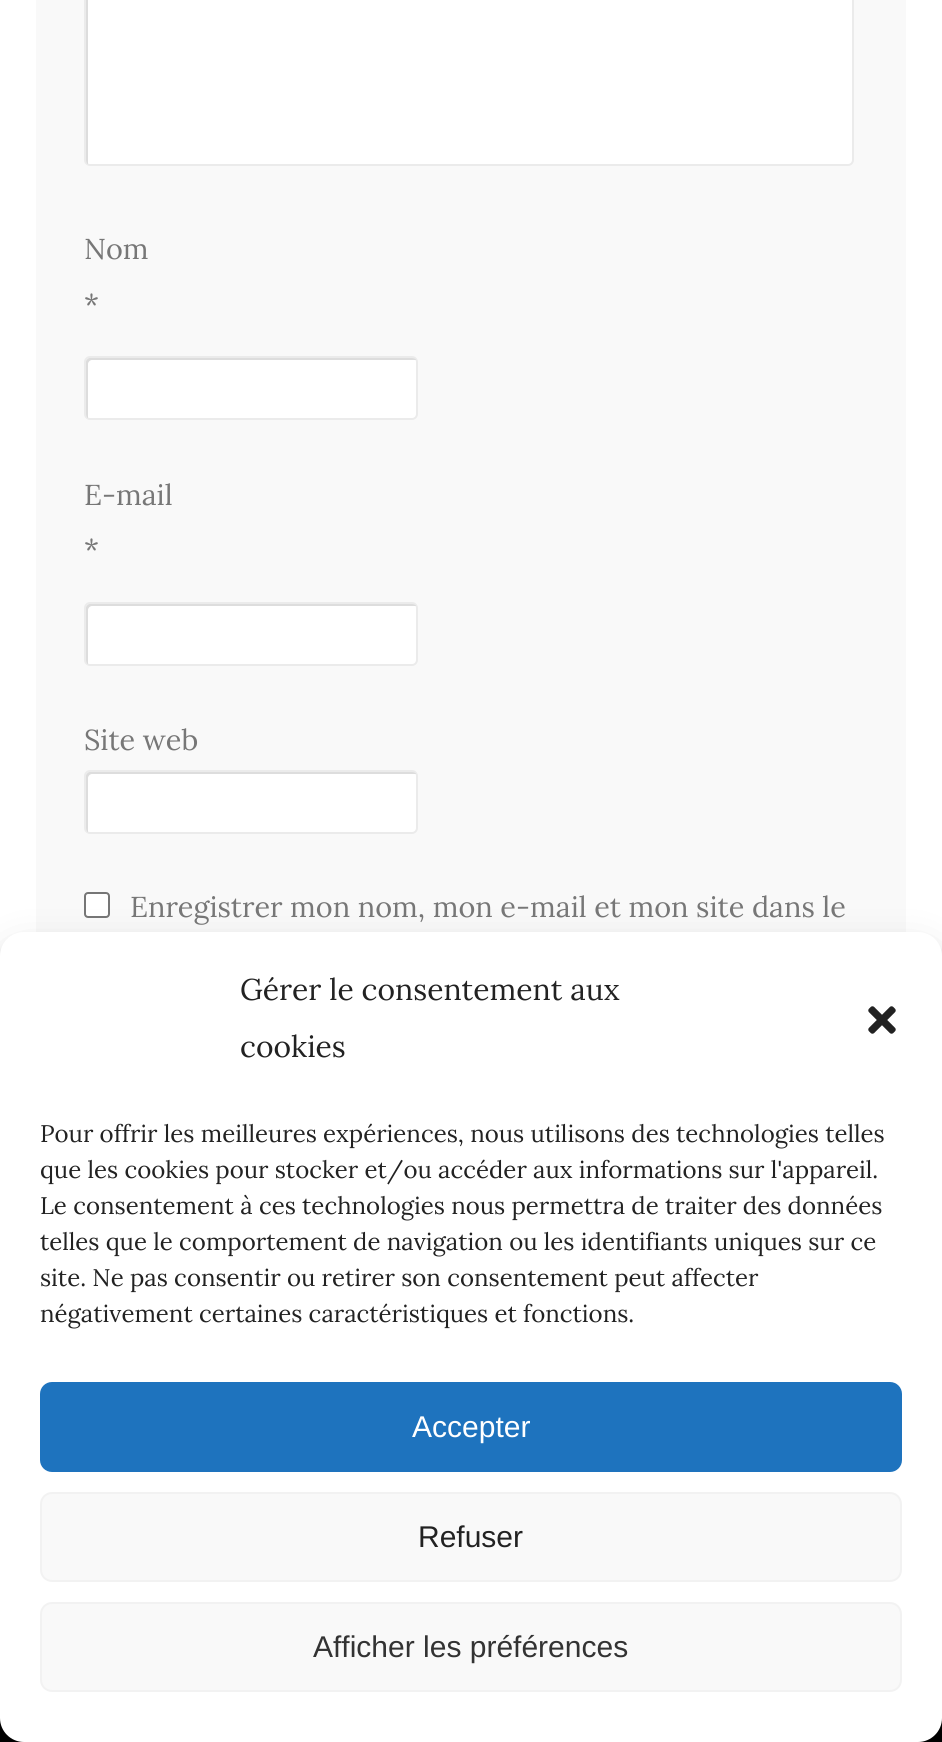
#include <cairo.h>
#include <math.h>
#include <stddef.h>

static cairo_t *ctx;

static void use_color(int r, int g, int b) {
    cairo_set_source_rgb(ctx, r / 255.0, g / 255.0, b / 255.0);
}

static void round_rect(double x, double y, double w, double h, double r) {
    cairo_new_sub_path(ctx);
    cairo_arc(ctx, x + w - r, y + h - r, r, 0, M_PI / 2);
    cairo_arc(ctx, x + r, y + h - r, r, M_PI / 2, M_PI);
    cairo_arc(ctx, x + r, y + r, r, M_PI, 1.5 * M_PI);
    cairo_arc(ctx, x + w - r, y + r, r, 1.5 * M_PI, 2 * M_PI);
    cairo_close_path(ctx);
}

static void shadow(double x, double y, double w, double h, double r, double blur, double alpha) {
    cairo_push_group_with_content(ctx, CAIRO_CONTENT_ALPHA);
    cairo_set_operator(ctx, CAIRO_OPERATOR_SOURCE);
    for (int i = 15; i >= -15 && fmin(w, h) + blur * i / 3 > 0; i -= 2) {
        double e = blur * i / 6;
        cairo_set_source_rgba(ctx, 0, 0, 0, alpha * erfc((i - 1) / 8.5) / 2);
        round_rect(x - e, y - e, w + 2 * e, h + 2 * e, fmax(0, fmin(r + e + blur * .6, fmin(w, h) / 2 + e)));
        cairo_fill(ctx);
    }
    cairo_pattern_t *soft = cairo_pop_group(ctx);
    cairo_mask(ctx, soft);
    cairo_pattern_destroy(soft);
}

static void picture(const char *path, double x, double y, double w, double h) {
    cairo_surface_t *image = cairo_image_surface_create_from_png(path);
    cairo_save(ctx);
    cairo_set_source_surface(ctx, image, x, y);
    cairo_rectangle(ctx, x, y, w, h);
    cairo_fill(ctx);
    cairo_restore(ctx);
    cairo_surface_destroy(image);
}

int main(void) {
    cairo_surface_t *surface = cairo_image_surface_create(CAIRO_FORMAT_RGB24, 942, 1742);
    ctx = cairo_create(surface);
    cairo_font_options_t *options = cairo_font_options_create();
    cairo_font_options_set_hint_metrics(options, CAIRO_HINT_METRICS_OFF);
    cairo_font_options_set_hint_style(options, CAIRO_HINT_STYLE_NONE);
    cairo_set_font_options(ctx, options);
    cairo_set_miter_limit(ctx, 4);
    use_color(255, 255, 255);
    cairo_paint(ctx);
    use_color(249, 249, 249);
    cairo_rectangle(ctx, 36, 0, 870, 932);
    cairo_fill(ctx);
    use_color(255, 255, 255);
    round_rect(84, -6, 770, 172, 6);
    cairo_fill(ctx);
    use_color(221, 221, 221);
    cairo_new_path(ctx);
    cairo_move_to(ctx, 92, -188);
    cairo_line_to(ctx, 850, -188);
    cairo_line_to(ctx, 852, -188);
    cairo_curve_to(ctx, 851, -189, 850, -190, 848, -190);
    cairo_line_to(ctx, 90, -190);
    cairo_curve_to(ctx, 88, -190, 86, -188, 86, -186);
    cairo_line_to(ctx, 86, 160);
    cairo_curve_to(ctx, 86, 162, 87, 163, 88, 164);
    cairo_line_to(ctx, 88, 162);
    cairo_line_to(ctx, 88, -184);
    cairo_curve_to(ctx, 88, -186, 90, -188, 92, -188);
    cairo_close_path(ctx);
    cairo_fill(ctx);
    round_rect(85, -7, 768, 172, 5);
    cairo_set_source_rgba(ctx, 0, 0, 0, 0.08);
    cairo_stroke(ctx);
    cairo_select_font_face(ctx, "Lora", CAIRO_FONT_SLANT_NORMAL, CAIRO_FONT_WEIGHT_NORMAL);
    cairo_set_font_size(ctx, 28.8);
    use_color(119, 119, 119);
    cairo_move_to(ctx, 84, 259);
    cairo_show_text(ctx, "Nom");
    cairo_move_to(ctx, 84, 314);
    cairo_show_text(ctx, "*");
    use_color(255, 255, 255);
    round_rect(84, 356, 334, 64, 6);
    cairo_fill(ctx);
    use_color(221, 221, 221);
    cairo_new_path(ctx);
    cairo_move_to(ctx, 92, 360);
    cairo_line_to(ctx, 414, 360);
    cairo_line_to(ctx, 416, 360);
    cairo_curve_to(ctx, 415, 359, 414, 358, 412, 358);
    cairo_line_to(ctx, 90, 358);
    cairo_curve_to(ctx, 88, 358, 86, 360, 86, 362);
    cairo_line_to(ctx, 86, 414);
    cairo_curve_to(ctx, 86, 416, 87, 417, 88, 418);
    cairo_line_to(ctx, 88, 416);
    cairo_line_to(ctx, 88, 364);
    cairo_curve_to(ctx, 88, 362, 90, 360, 92, 360);
    cairo_close_path(ctx);
    cairo_fill(ctx);
    round_rect(85, 357, 332, 62, 5);
    cairo_set_source_rgba(ctx, 0, 0, 0, 0.08);
    cairo_stroke(ctx);
    use_color(119, 119, 119);
    cairo_move_to(ctx, 84, 505);
    cairo_show_text(ctx, "E-mail");
    cairo_move_to(ctx, 84, 559);
    cairo_show_text(ctx, "*");
    use_color(255, 255, 255);
    round_rect(84, 602, 334, 64, 6);
    cairo_fill(ctx);
    use_color(221, 221, 221);
    cairo_new_path(ctx);
    cairo_move_to(ctx, 92, 606);
    cairo_line_to(ctx, 414, 606);
    cairo_line_to(ctx, 416, 606);
    cairo_curve_to(ctx, 415, 605, 414, 604, 412, 604);
    cairo_line_to(ctx, 90, 604);
    cairo_curve_to(ctx, 88, 604, 86, 606, 86, 608);
    cairo_line_to(ctx, 86, 660);
    cairo_curve_to(ctx, 86, 662, 87, 663, 88, 664);
    cairo_line_to(ctx, 88, 662);
    cairo_line_to(ctx, 88, 610);
    cairo_curve_to(ctx, 88, 608, 90, 606, 92, 606);
    cairo_close_path(ctx);
    cairo_fill(ctx);
    round_rect(85, 603, 332, 62, 5);
    cairo_set_source_rgba(ctx, 0, 0, 0, 0.08);
    cairo_stroke(ctx);
    use_color(119, 119, 119);
    cairo_move_to(ctx, 84, 750);
    cairo_show_text(ctx, "Site web");
    use_color(255, 255, 255);
    round_rect(84, 770, 334, 64, 6);
    cairo_fill(ctx);
    use_color(221, 221, 221);
    cairo_new_path(ctx);
    cairo_move_to(ctx, 92, 774);
    cairo_line_to(ctx, 414, 774);
    cairo_line_to(ctx, 416, 774);
    cairo_curve_to(ctx, 415, 773, 414, 772, 412, 772);
    cairo_line_to(ctx, 90, 772);
    cairo_curve_to(ctx, 88, 772, 86, 774, 86, 776);
    cairo_line_to(ctx, 86, 828);
    cairo_curve_to(ctx, 86, 830, 87, 831, 88, 832);
    cairo_line_to(ctx, 88, 830);
    cairo_line_to(ctx, 88, 778);
    cairo_curve_to(ctx, 88, 776, 90, 774, 92, 774);
    cairo_close_path(ctx);
    cairo_fill(ctx);
    round_rect(85, 771, 332, 62, 5);
    cairo_set_source_rgba(ctx, 0, 0, 0, 0.08);
    cairo_stroke(ctx);
    use_color(255, 255, 255);
    round_rect(85, 893, 24, 24, 3);
    cairo_fill_preserve(ctx);
    use_color(118, 118, 118);
    cairo_stroke(ctx);
    use_color(119, 119, 119);
    cairo_move_to(ctx, 130, 917);
    cairo_show_text(ctx, "Enregistrer mon nom, mon e-mail et mon site dans le");
    use_color(0, 0, 0);
    cairo_rectangle(ctx, 0, 1718, 942, 24);
    cairo_fill(ctx);
    use_color(0, 0, 0);
    shadow(0, 944, 942, 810, 24, 6, 0.23);
    shadow(0, 952, 942, 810, 24, 20, 0.19);
    use_color(255, 255, 255);
    round_rect(0, 932, 942, 810, 24);
    cairo_fill(ctx);
    cairo_set_font_size(ctx, 30);
    use_color(34, 34, 34);
    cairo_move_to(ctx, 240, 1000);
    cairo_show_text(ctx, "Gérer le consentement aux");
    cairo_move_to(ctx, 240, 1057);
    cairo_show_text(ctx, "cookies");
    picture("img1.png", 868, 1006, 28, 28);
    cairo_set_font_size(ctx, 24);
    cairo_move_to(ctx, 40, 1142);
    cairo_show_text(ctx, "Pour offrir les meilleures expériences, nous utilisons des technologies telles");
    cairo_move_to(ctx, 40, 1178);
    cairo_show_text(ctx, "que les cookies pour stocker et/ou accéder aux informations sur l'appareil.");
    cairo_move_to(ctx, 40, 1214);
    cairo_show_text(ctx, "Le consentement à ces technologies nous permettra de traiter des données");
    cairo_move_to(ctx, 40, 1250);
    cairo_show_text(ctx, "telles que le comportement de navigation ou les identifiants uniques sur ce");
    cairo_move_to(ctx, 40, 1286);
    cairo_show_text(ctx, "site. Ne pas consentir ou retirer son consentement peut affecter");
    cairo_move_to(ctx, 40, 1322);
    cairo_show_text(ctx, "négativement certaines caractéristiques et fonctions.");
    use_color(30, 115, 190);
    round_rect(41, 1383, 860, 88, 11);
    cairo_fill_preserve(ctx);
    cairo_stroke(ctx);
    cairo_select_font_face(ctx, "Liberation Sans", CAIRO_FONT_SLANT_NORMAL, CAIRO_FONT_WEIGHT_NORMAL);
    cairo_set_font_size(ctx, 30);
    use_color(255, 255, 255);
    cairo_move_to(ctx, 412, 1437);
    cairo_show_text(ctx, "Accepter");
    use_color(249, 249, 249);
    round_rect(41, 1493, 860, 88, 11);
    cairo_fill_preserve(ctx);
    use_color(242, 242, 242);
    cairo_stroke(ctx);
    use_color(34, 34, 34);
    cairo_move_to(ctx, 418, 1547);
    cairo_show_text(ctx, "Refuser");
    use_color(249, 249, 249);
    round_rect(41, 1603, 860, 88, 11);
    cairo_fill_preserve(ctx);
    use_color(242, 242, 242);
    cairo_stroke(ctx);
    use_color(51, 51, 51);
    cairo_move_to(ctx, 313, 1657);
    cairo_show_text(ctx, "Afficher les préférences");
    cairo_surface_write_to_png(surface, "result.png");
    cairo_font_options_destroy(options);
    cairo_destroy(ctx);
    cairo_surface_destroy(surface);
    return 0;
}
